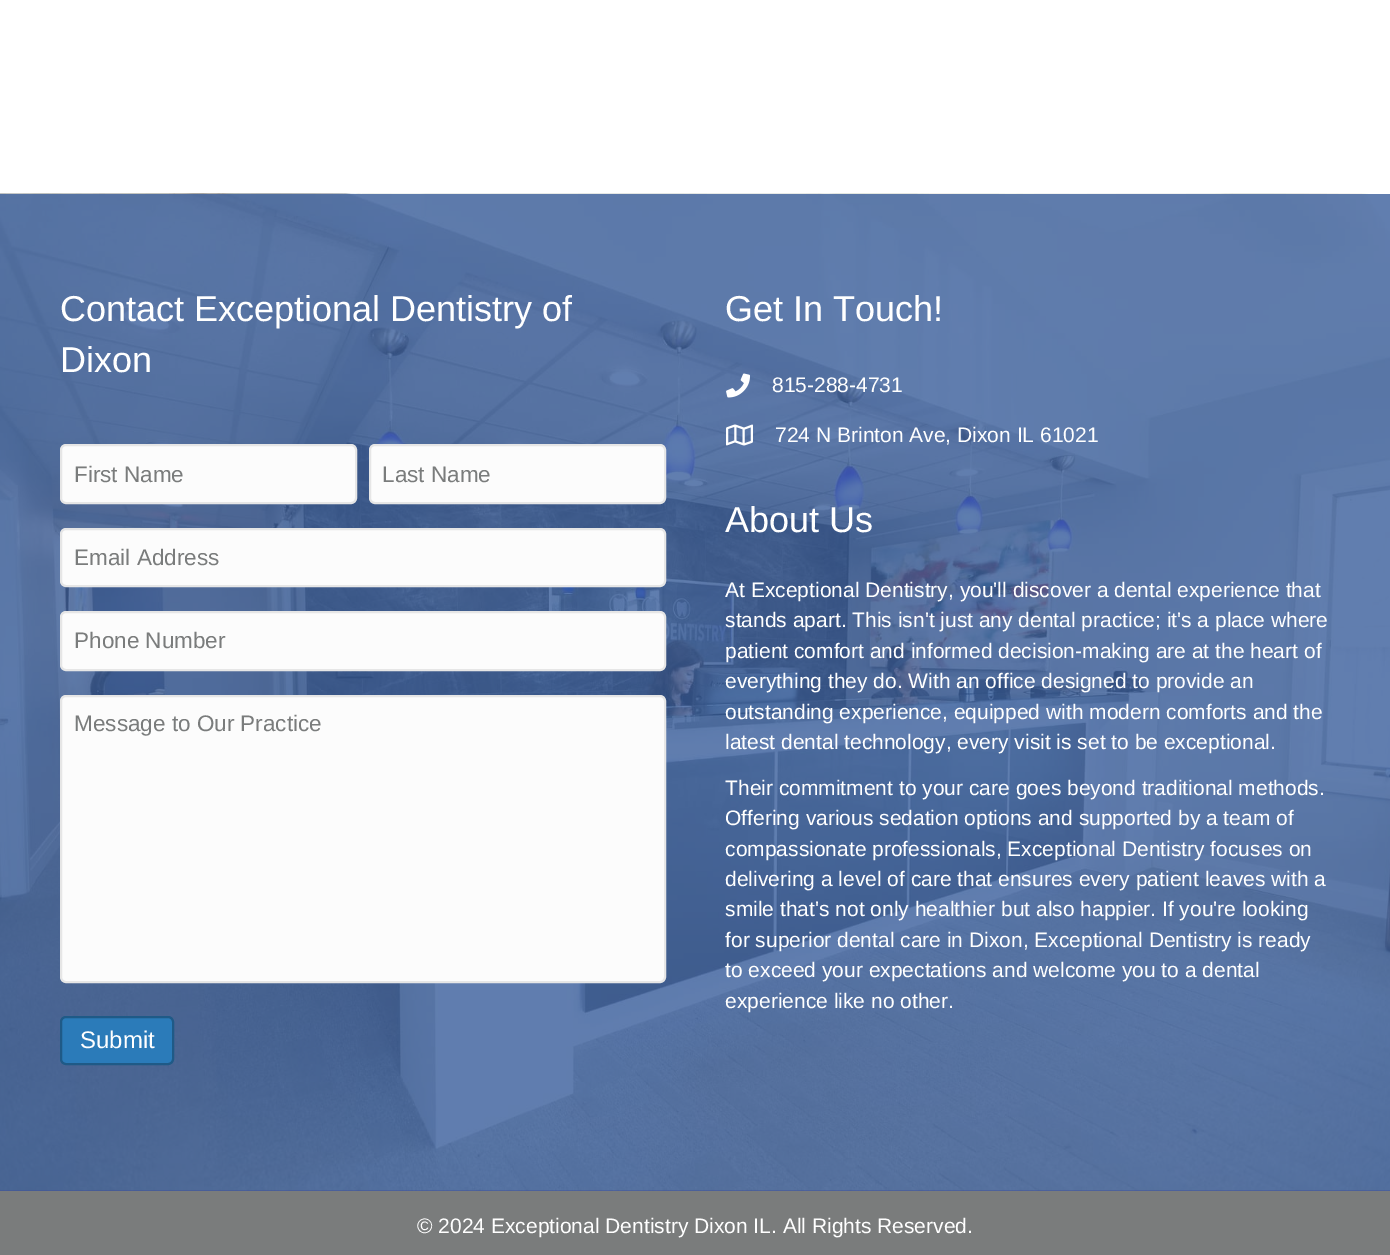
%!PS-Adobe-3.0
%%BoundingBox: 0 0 1390 1255
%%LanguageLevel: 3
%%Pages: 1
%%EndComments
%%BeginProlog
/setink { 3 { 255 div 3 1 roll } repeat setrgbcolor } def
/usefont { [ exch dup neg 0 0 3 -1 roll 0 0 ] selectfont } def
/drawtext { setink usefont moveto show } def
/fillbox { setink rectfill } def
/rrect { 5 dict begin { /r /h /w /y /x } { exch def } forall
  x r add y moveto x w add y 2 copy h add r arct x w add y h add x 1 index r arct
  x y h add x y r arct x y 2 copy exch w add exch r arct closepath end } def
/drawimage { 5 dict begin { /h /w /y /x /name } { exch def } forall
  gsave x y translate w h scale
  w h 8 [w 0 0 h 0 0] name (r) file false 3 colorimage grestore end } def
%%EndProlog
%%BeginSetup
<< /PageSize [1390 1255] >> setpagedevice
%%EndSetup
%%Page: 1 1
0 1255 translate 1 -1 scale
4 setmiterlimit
0 0 1390 1255 255 255 255 fillbox
0 1190 1390 1 67 82 153 fillbox
(assets/img1.rgb) 0 193 1390 998 drawimage
(Contact Exceptional Dentistry of) 60 321 /LiberationSans-Regular 36 255 255 255 drawtext
(Dixon) 60 372 /LiberationSans-Regular 36 255 255 255 drawtext
252 252 252 setink
61 445 295 58 5 rrect gsave fill grestore
230 230 230 setink
2 setlinewidth
stroke
(First Name) 74 482 /LiberationSans-Regular 22.5 122 124 124 drawtext
252 252 252 setink
370 445 295 58 5 rrect gsave fill grestore
230 230 230 setink
stroke
(Last Name) 382 482 /LiberationSans-Regular 22.5 122 124 124 drawtext
252 252 252 setink
61 529 604 57 5 rrect gsave fill grestore
230 230 230 setink
stroke
(Email Address) 74 565 /LiberationSans-Regular 22.5 122 124 124 drawtext
252 252 252 setink
61 612 604 58 5 rrect gsave fill grestore
230 230 230 setink
stroke
(Phone Number) 74 648 /LiberationSans-Regular 22.5 122 124 124 drawtext
252 252 252 setink
61 696 604 286 5 rrect gsave fill grestore
230 230 230 setink
stroke
(Message to Our Practice) 74 731 /LiberationSans-Regular 22.5 122 124 124 drawtext
43 123 185 setink
61 1017 112 47 5 rrect gsave fill grestore
31 90 135 setink
stroke
(Submit) 80 1048 /LiberationSans-Regular 24 255 255 255 drawtext
(Get In Touch!) 725 321 /LiberationSans-Regular 36 255 255 255 drawtext
(assets/img2.rgb) 726 373 24 25 drawimage
(815-288-4731) 772 392 /LiberationSans-Regular 21 255 255 255 drawtext
(assets/img3.rgb) 726 424 27 22 drawimage
(724 N Brinton Ave, Dixon IL 61021) 775 442 /LiberationSans-Regular 21 255 255 255 drawtext
(About Us) 725 532 /LiberationSans-Regular 36 255 255 255 drawtext
(At Exceptional Dentistry, you'll discover a dental experience that) 725 597 /LiberationSans-Regular 21 255 255 255 drawtext
(stands apart. This isn't just any dental practice; it's a place where) 725 627 /LiberationSans-Regular 21 255 255 255 drawtext
(patient comfort and informed decision-making are at the heart of) 725 658 /LiberationSans-Regular 21 255 255 255 drawtext
(everything they do. With an office designed to provide an) 725 688 /LiberationSans-Regular 21 255 255 255 drawtext
(outstanding experience, equipped with modern comforts and the) 725 719 /LiberationSans-Regular 21 255 255 255 drawtext
(latest dental technology, every visit is set to be exceptional.) 725 749 /LiberationSans-Regular 21 255 255 255 drawtext
(Their commitment to your care goes beyond traditional methods.) 725 795 /LiberationSans-Regular 21 255 255 255 drawtext
(Offering various sedation options and supported by a team of) 725 825 /LiberationSans-Regular 21 255 255 255 drawtext
(compassionate professionals, Exceptional Dentistry focuses on) 725 856 /LiberationSans-Regular 21 255 255 255 drawtext
(delivering a level of care that ensures every patient leaves with a) 725 886 /LiberationSans-Regular 21 255 255 255 drawtext
(smile that's not only healthier but also happier. If you're looking) 725 916 /LiberationSans-Regular 21 255 255 255 drawtext
(for superior dental care in Dixon, Exceptional Dentistry is ready) 725 947 /LiberationSans-Regular 21 255 255 255 drawtext
(to exceed your expectations and welcome you to a dental) 725 977 /LiberationSans-Regular 21 255 255 255 drawtext
(experience like no other.) 725 1008 /LiberationSans-Regular 21 255 255 255 drawtext
0 1191 1390 64 122 124 124 fillbox
(© 2024 Exceptional Dentistry Dixon IL. All Rights Reserved.) 417 1233 /LiberationSans-Regular 21 255 255 255 drawtext
showpage
%%EOF
